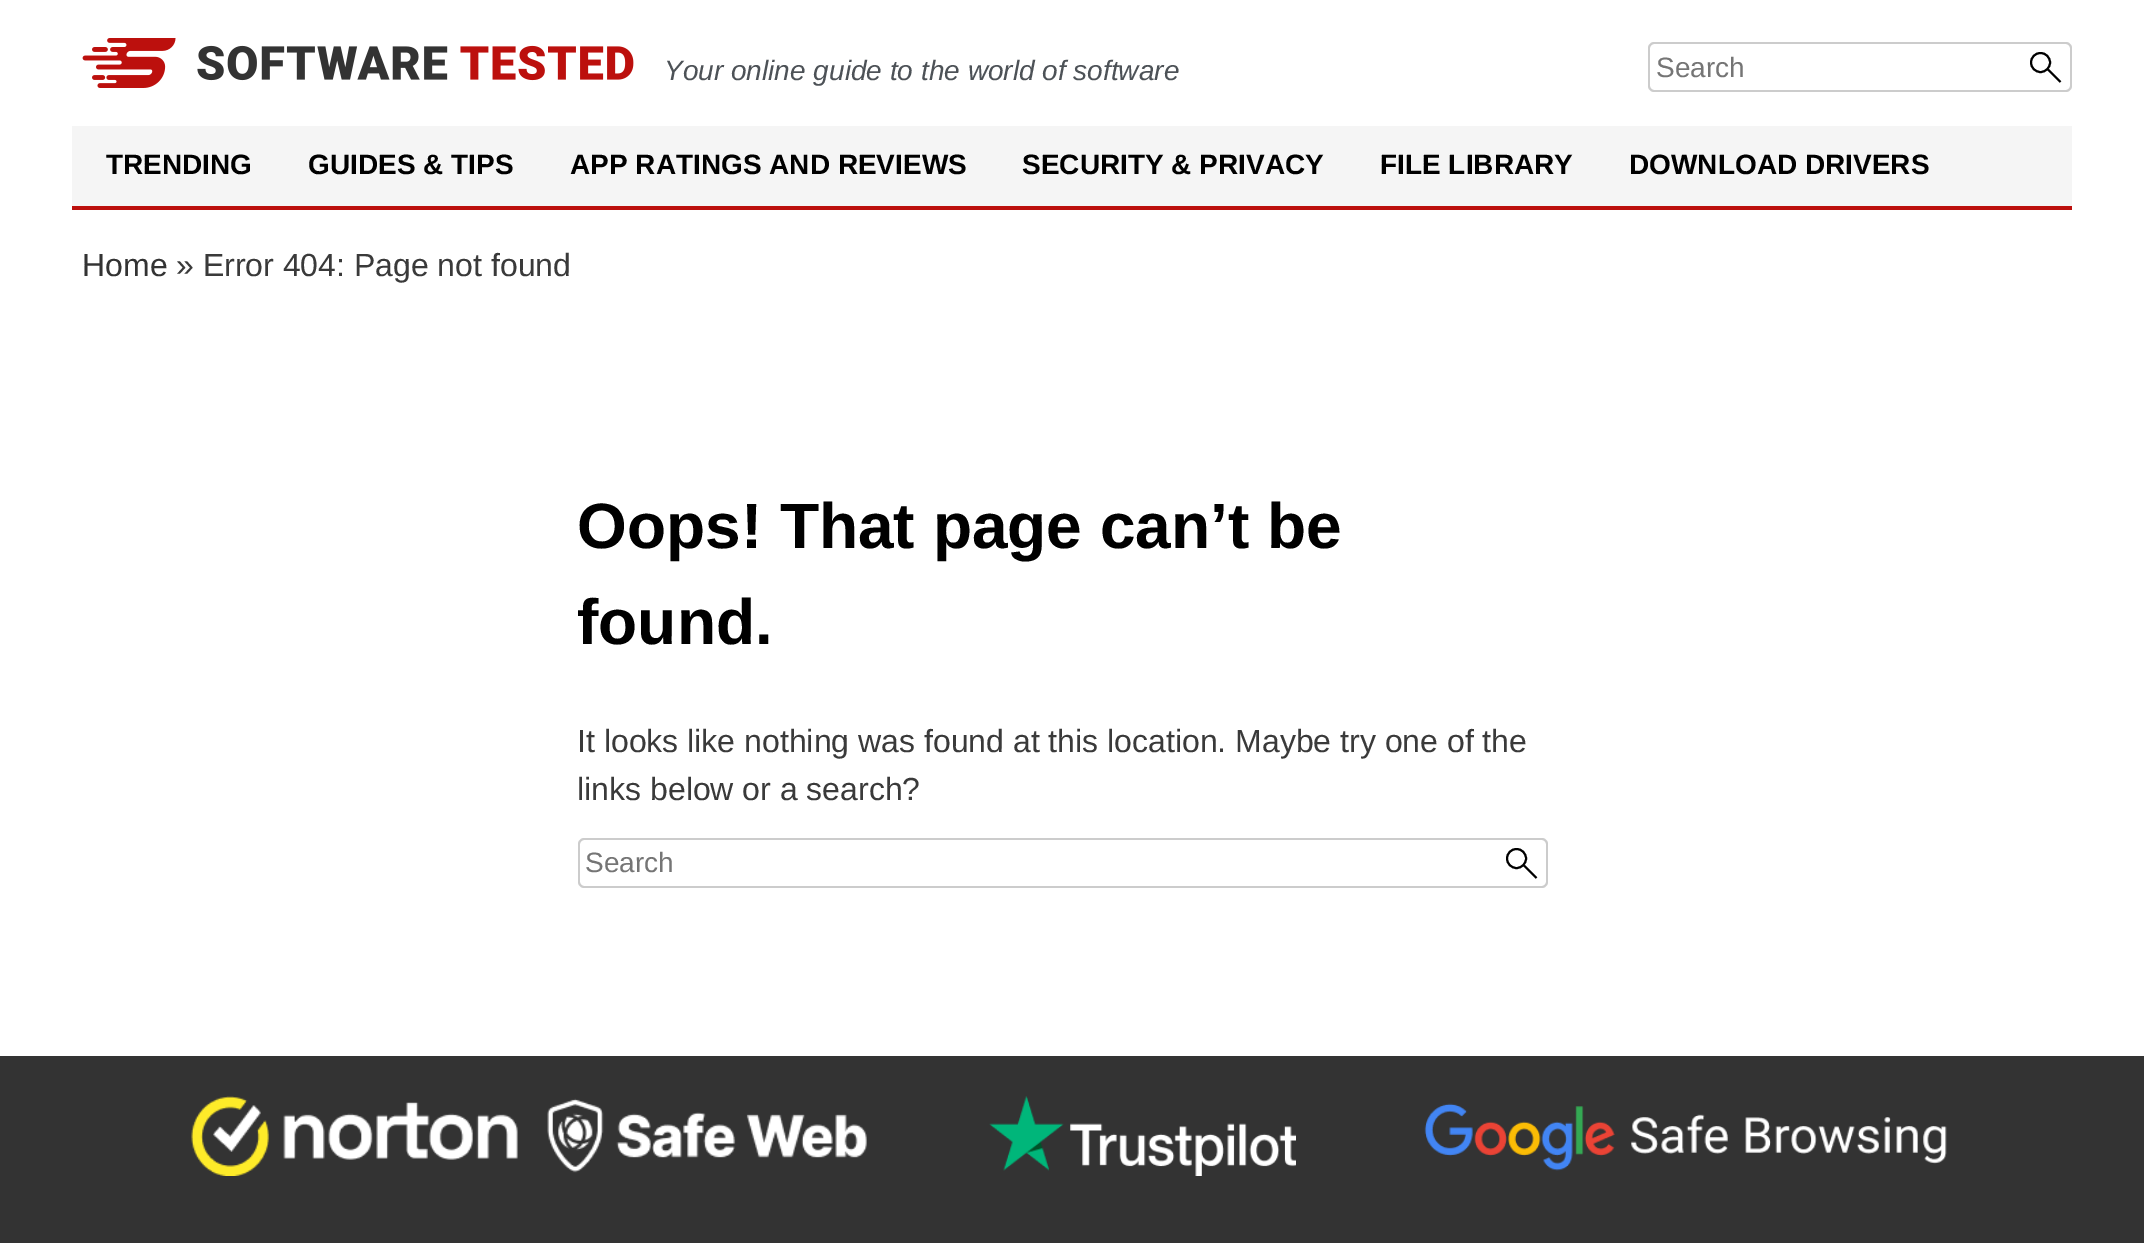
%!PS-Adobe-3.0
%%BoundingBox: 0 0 2144 1243
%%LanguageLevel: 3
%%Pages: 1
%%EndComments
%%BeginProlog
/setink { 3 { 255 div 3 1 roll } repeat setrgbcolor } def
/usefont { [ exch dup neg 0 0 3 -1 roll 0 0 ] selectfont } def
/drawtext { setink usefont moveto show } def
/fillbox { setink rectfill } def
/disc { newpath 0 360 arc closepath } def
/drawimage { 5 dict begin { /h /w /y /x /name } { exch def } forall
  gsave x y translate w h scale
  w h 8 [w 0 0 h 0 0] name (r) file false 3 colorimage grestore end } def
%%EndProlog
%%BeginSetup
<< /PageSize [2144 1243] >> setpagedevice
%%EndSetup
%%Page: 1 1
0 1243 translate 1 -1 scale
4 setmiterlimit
0 0 2144 1243 255 255 255 fillbox
(assets/img1.rgb) 82 38 552 50 drawimage
(Your online guide to the world of software) 664 80 /LiberationSans-Italic 28 77 82 87 drawtext
204 204 204 setink
1654 42 moveto 2022 42 lineto 2022 92 lineto 1654 92 lineto 1651 92 1648 89 1648 86 curveto 1648 48 lineto 1648 45 1651 42 1654 42 curveto closepath 1654 44 moveto 2022 44 lineto 2022 90 lineto 1654 90 lineto 1652 90 1650 88 1650 86 curveto 1650 48 lineto 1650 46 1652 44 1654 44 curveto closepath eofill
(Search) 1656 77 /LiberationSans-Regular 28 117 117 117 drawtext
0 0 0 setink
2 setlinewidth
2040.5 62.5 9.5 disc stroke
2048 69.5 moveto 2060.5 82 lineto stroke
204 204 204 setink
2022 42 moveto 2066 42 lineto 2069 42 2072 45 2072 48 curveto 2072 86 lineto 2072 89 2069 92 2066 92 curveto 2022 92 lineto closepath 2022 44 moveto 2066 44 lineto 2068 44 2070 46 2070 48 curveto 2070 86 lineto 2070 88 2068 90 2066 90 curveto 2022 90 lineto closepath eofill
72 206 2000 4 188 16 13 fillbox
72 126 2000 80 245 245 245 fillbox
(TRENDING) 106 174 /LiberationSans-Bold 28 0 0 0 drawtext
(GUIDES & TIPS) 308 174 /LiberationSans-Bold 28 0 0 0 drawtext
(APP RATINGS AND REVIEWS) 570 174 /LiberationSans-Bold 28 0 0 0 drawtext
(SECURITY & PRIVACY) 1022 174 /LiberationSans-Bold 28 0 0 0 drawtext
(FILE LIBRARY) 1380 174 /LiberationSans-Bold 28 0 0 0 drawtext
(DOWNLOAD DRIVERS) 1629 174 /LiberationSans-Bold 28 0 0 0 drawtext
(Home) 82 276 /LiberationSans-Regular 32 51 51 51 drawtext
(» Error 404: Page not found) 176 276 /LiberationSans-Regular 32 58 58 58 drawtext
(Oops! That page can’t be) 577 548 /LiberationSans-Bold 64 0 0 0 drawtext
(found.) 577 644 /LiberationSans-Bold 64 0 0 0 drawtext
(It looks like nothing was found at this location. Maybe try one of the) 577 752 /LiberationSans-Regular 32 58 58 58 drawtext
(links below or a search?) 577 800 /LiberationSans-Regular 32 58 58 58 drawtext
204 204 204 setink
584 838 moveto 1498 838 lineto 1498 888 lineto 584 888 lineto 581 888 578 885 578 882 curveto 578 844 lineto 578 841 581 838 584 838 curveto closepath 584 840 moveto 1498 840 lineto 1498 886 lineto 584 886 lineto 582 886 580 884 580 882 curveto 580 844 lineto 580 842 582 840 584 840 curveto closepath eofill
(Search) 585 872 /LiberationSans-Regular 28 117 117 117 drawtext
0 0 0 setink
1516.5 858.5 9.5 disc stroke
1524 865.5 moveto 1536.5 878 lineto stroke
204 204 204 setink
1498 838 moveto 1542 838 lineto 1545 838 1548 841 1548 844 curveto 1548 882 lineto 1548 885 1545 888 1542 888 curveto 1498 888 lineto closepath 1498 840 moveto 1542 840 lineto 1544 840 1546 842 1546 844 curveto 1546 882 lineto 1546 884 1544 886 1542 886 curveto 1498 886 lineto closepath eofill
0 1056 2144 187 51 51 51 fillbox
(assets/img2.rgb) 191 1096 676 80 drawimage
(assets/img3.rgb) 989 1096 307 80 drawimage
(assets/img4.rgb) 1424 1103 523 68 drawimage
showpage
%%EOF
